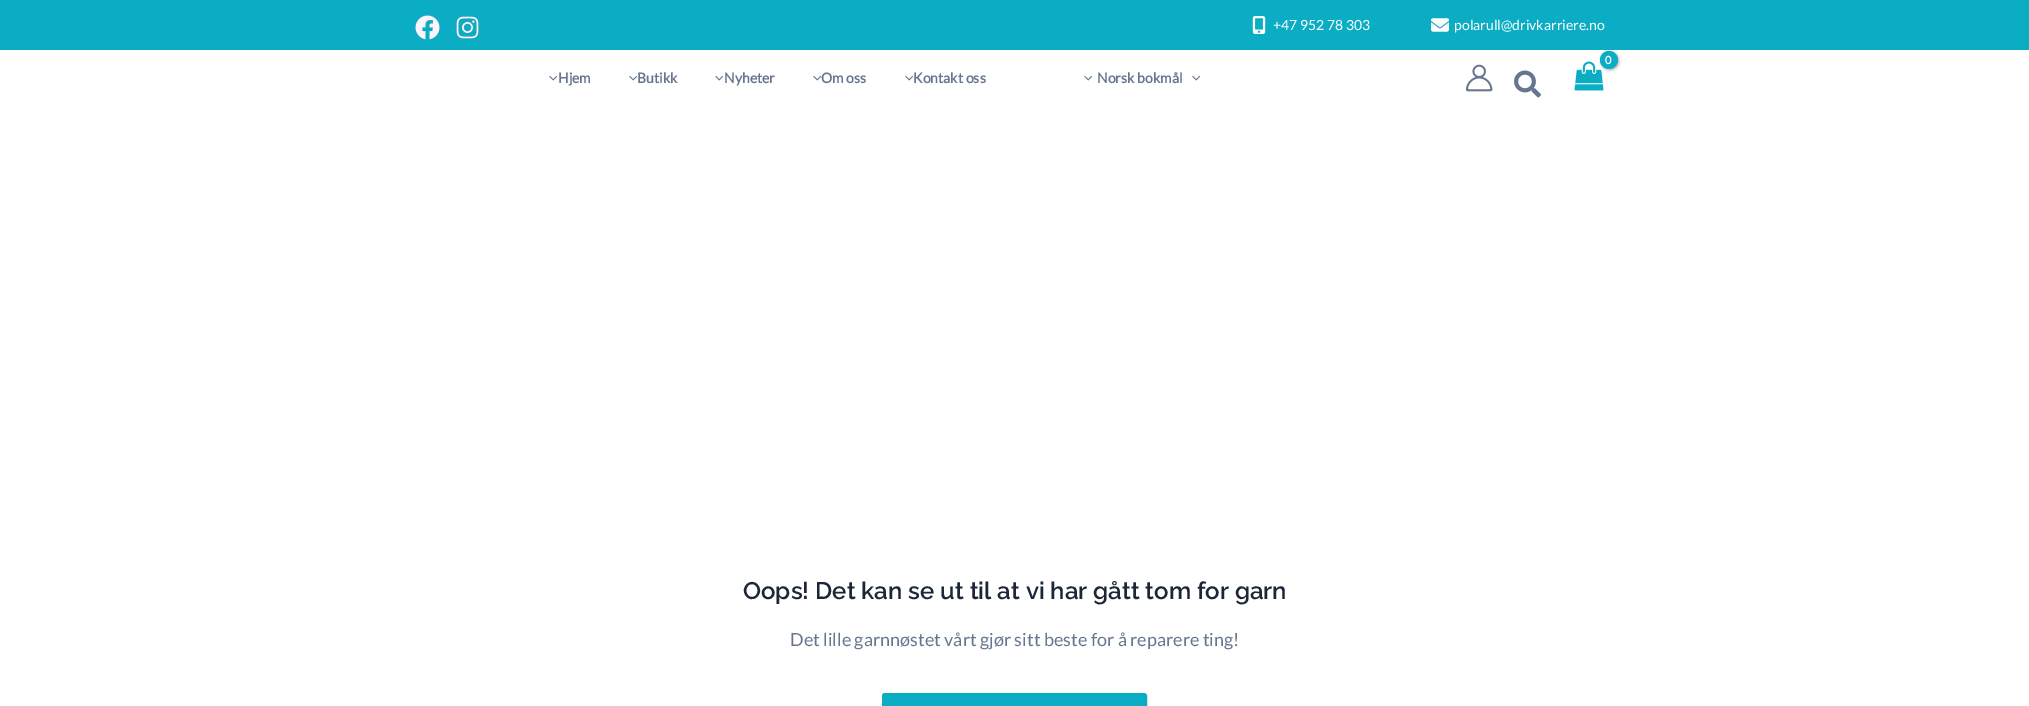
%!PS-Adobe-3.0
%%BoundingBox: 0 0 2029 706
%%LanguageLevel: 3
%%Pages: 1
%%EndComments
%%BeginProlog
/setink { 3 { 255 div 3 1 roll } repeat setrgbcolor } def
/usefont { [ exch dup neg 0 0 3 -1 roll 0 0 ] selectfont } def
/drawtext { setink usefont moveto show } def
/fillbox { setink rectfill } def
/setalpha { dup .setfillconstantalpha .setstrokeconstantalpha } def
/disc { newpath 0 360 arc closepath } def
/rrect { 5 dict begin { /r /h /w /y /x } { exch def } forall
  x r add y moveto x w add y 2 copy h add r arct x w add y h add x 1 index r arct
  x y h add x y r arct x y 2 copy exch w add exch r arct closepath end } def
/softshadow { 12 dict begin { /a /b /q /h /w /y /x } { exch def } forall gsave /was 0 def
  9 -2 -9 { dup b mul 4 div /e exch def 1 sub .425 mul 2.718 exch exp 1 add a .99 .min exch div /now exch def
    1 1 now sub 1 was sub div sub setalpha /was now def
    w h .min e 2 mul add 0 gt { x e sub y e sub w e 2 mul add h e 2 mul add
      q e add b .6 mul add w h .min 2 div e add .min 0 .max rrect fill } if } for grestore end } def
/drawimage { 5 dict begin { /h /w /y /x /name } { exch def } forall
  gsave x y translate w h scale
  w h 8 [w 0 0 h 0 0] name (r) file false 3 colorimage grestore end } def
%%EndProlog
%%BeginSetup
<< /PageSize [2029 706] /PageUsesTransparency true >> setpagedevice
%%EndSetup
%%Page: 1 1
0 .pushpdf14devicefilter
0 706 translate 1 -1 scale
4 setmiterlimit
0 0 2029 706 255 255 255 fillbox
0 0 2029 50 11 173 196 fillbox
(assets/img1.rgb) 415 15 25 25 drawimage
(assets/img2.rgb) 456 16 23 23 drawimage
(assets/img3.rgb) 1252 16 14 18 drawimage
(+47 952 78 303) 1273 30 /Lato-Regular 14 255 255 255 drawtext
(assets/img4.rgb) 1431 18 18 14 drawimage
(polarull@drivkarriere.no) 1454 30 /Lato-Regular 14 255 255 255 drawtext
(assets/img5.rgb) 1574 61 30 30 drawimage
0 0 0 setink
1601 52 18 18 9 1.5 0.3 softshadow
11 173 196 setink
1609 60 9 disc fill
(0) 1605 64 /Lato-Bold 11 255 255 255 drawtext
(assets/img6.rgb) 1465 64 28 28 drawimage
(assets/img7.rgb) 1514 70 27 28 drawimage
(assets/img8.rgb) 549 75 9 6 drawimage
(Hjem) 558 83 /Lato-Bold 14 103 118 142 drawtext
(assets/img9.rgb) 629 75 8 6 drawimage
(Butikk) 637 83 /Lato-Bold 14 103 118 142 drawtext
(assets/img8.rgb) 715 75 9 6 drawimage
(Nyheter) 724 83 /Lato-Bold 14 103 118 142 drawtext
(assets/img9.rgb) 813 75 8 6 drawimage
(Om oss) 821 83 /Lato-Bold 14 103 118 142 drawtext
(assets/img9.rgb) 905 75 8 6 drawimage
(Kontakt oss) 913 83 /Lato-Bold 14 103 118 142 drawtext
(assets/img8.rgb) 1084 75 9 6 drawimage
(Norsk bokmål) 1097 83 /Lato-Bold 14 103 118 142 drawtext
(assets/img8.rgb) 1192 75 9 6 drawimage
(Oops! Det kan se ut til at vi har gått tom for garn) 743 599 /Raleway-SemiBold 24 28 38 55 drawtext
(Det lille garnnøstet vårt gjør sitt beste for å reparere ting!) 790 646 /Lato-Regular 18 103 118 142 drawtext
11 173 196 setink
882.5 693.5 264 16 2.5 rrect gsave fill grestore
stroke
.poppdf14devicefilter showpage
%%EOF
